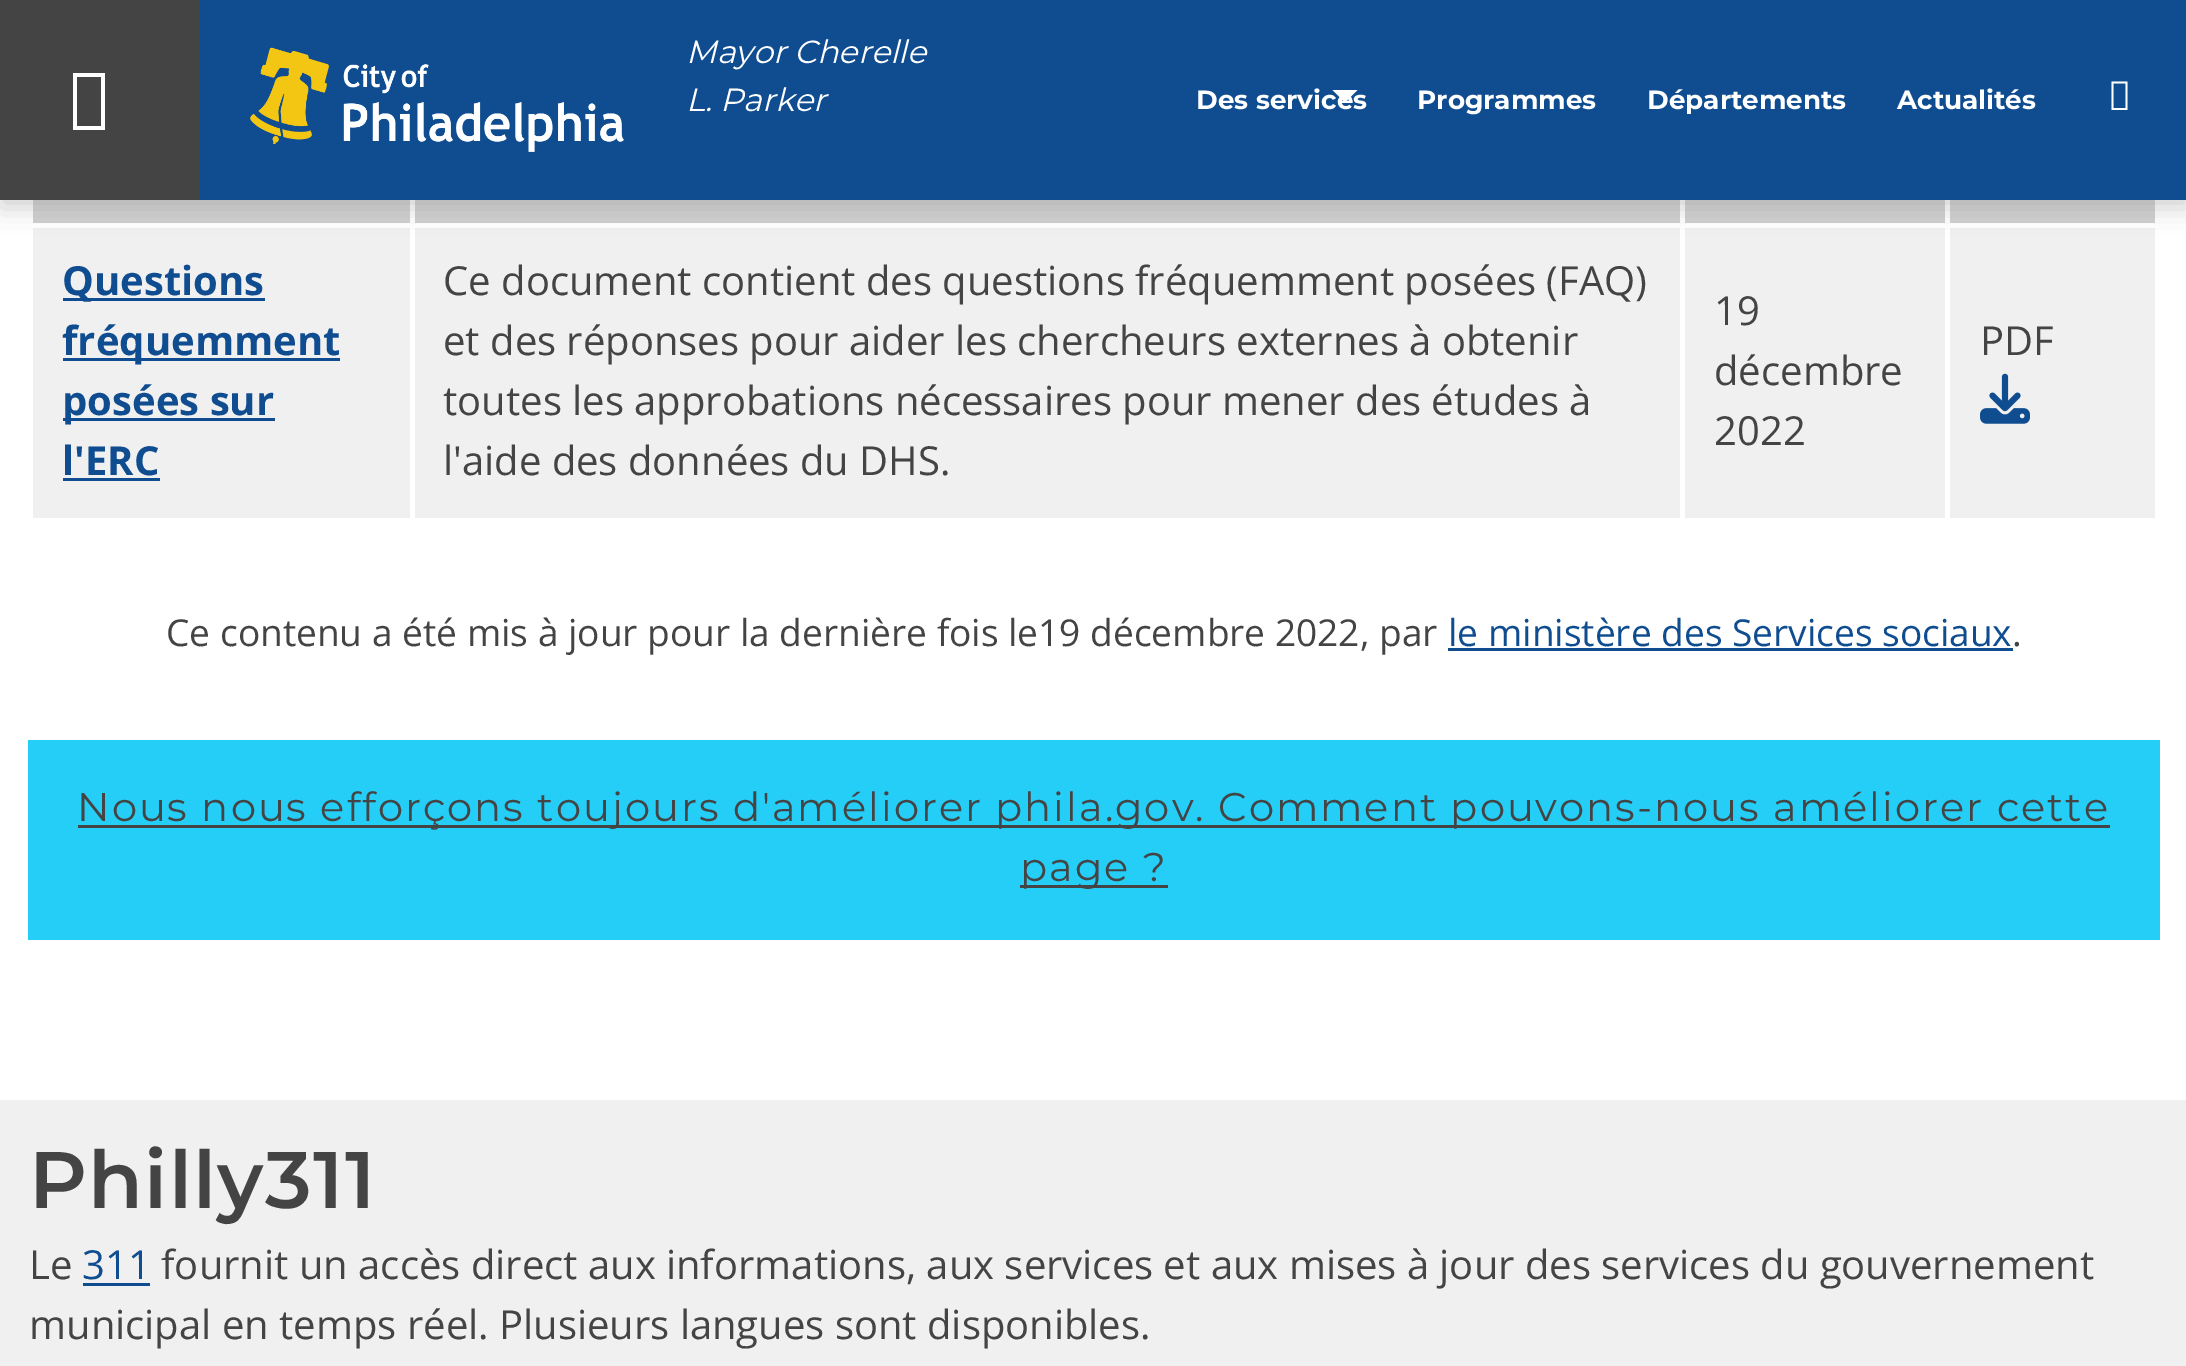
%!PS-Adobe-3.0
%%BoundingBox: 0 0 2186 1366
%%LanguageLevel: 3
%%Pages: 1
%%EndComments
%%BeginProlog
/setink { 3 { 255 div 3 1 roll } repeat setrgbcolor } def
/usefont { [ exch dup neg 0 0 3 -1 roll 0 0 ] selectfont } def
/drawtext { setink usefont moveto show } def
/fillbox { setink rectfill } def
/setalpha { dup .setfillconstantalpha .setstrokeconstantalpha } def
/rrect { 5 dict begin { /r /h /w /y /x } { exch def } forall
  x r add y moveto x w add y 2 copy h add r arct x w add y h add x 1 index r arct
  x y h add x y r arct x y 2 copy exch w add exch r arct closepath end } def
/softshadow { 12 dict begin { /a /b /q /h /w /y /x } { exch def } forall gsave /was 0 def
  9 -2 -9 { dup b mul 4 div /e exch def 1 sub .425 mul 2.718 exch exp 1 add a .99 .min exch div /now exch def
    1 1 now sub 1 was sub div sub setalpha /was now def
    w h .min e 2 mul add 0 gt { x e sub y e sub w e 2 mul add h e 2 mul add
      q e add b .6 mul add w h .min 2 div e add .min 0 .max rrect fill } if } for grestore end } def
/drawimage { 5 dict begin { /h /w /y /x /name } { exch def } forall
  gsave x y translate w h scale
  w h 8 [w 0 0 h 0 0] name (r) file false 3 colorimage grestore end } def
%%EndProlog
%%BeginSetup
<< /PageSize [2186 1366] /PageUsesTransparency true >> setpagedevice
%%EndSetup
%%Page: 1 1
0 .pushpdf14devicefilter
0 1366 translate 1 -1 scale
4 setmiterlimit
0 0 2186 1366 255 255 255 fillbox
33 228 2122 290 240 240 240 fillbox
33 200 2122 23 207 207 207 fillbox
410 200 5 323 255 255 255 fillbox
1680 200 5 323 255 255 255 fillbox
1945 200 5 323 255 255 255 fillbox
161 161 161 setink
0 8 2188 200 0 12.5 0.5 softshadow
200 0 1986 200 15 77 144 fillbox
0 0 200 200 68 68 68 fillbox
255 255 255 setink
73 130 moveto 73 73 lineto 105 73 lineto 105 130 lineto closepath 77 126 moveto 101 126 lineto 101 77 lineto 77 77 lineto closepath fill
(assets/img1.rgb) 250 47 374 105 drawimage
(Mayor Cherelle) 686 63 /Montserrat-Italic 32 255 255 255 drawtext
(L. Parker) 686 111 /Montserrat-Italic 32 255 255 255 drawtext
(Des services) 1196 109 /Montserrat-Bold 26.25 255 255 255 drawtext
1332.5 90 moveto 1357.5 90 lineto 1345 102.5 lineto closepath fill
(Programmes) 1417 109 /Montserrat-Bold 26.25 255 255 255 drawtext
(Départements) 1647 109 /Montserrat-Bold 26.25 255 255 255 drawtext
(Actualités) 1897 109 /Montserrat-Bold 26.25 255 255 255 drawtext
2111.5 110 moveto 2111.5 81.5 lineto 2127.5 81.5 lineto 2127.5 110 lineto closepath 2113.5 108 moveto 2125.5 108 lineto 2125.5 83.5 lineto 2113.5 83.5 lineto closepath fill
63 298 202 3 15 77 144 fillbox
(Questions) 62 295 /OpenSans-Bold 40 15 77 144 drawtext
63 358 277 3 15 77 144 fillbox
(fréquemment) 62 355 /OpenSans-Bold 40 15 77 144 drawtext
63 418 212 3 15 77 144 fillbox
(posées sur) 62 415 /OpenSans-Bold 40 15 77 144 drawtext
(l'ERC) 62 475 /OpenSans-Bold 40 15 77 144 drawtext
63 478 97 3 15 77 144 fillbox
(Ce document contient des questions fréquemment posées \(FAQ\)) 443 295 /OpenSans-Regular 40 68 68 68 drawtext
(et des réponses pour aider les chercheurs externes à obtenir) 443 355 /OpenSans-Regular 40 68 68 68 drawtext
(toutes les approbations nécessaires pour mener des études à) 443 415 /OpenSans-Regular 40 68 68 68 drawtext
(l'aide des données du DHS.) 443 475 /OpenSans-Regular 40 68 68 68 drawtext
(19) 1714 325 /OpenSans-Regular 40 68 68 68 drawtext
(décembre) 1714 385 /OpenSans-Regular 40 68 68 68 drawtext
(2022) 1714 445 /OpenSans-Regular 40 68 68 68 drawtext
(PDF) 1980 355 /OpenSans-Regular 40 68 68 68 drawtext
(assets/img2.rgb) 1980 373 50 51 drawimage
(Ce contenu a été mis à jour pour la dernière fois le) 166 646 /OpenSans-Regular 37.1 68 68 68 drawtext
(19 décembre 2022, par) 1038 646 /OpenSans-Regular 37.1 68 68 68 drawtext
(le ministère des Services sociaux) 1448 646 /OpenSans-Regular 37.1 15 77 144 drawtext
1448 648 565 3 15 77 144 fillbox
(.) 2012 646 /OpenSans-Regular 37.1 68 68 68 drawtext
28 740 2132 200 37 206 247 fillbox
78 825 2032 3 68 68 68 fillbox
/Montserrat-Regular 40 usefont
77 821 moveto 2 0 (Nous nous efforçons toujours d'améliorer phila.gov. Comment pouvons-nous améliorer cette) ashow
1020 885 148 3 68 68 68 fillbox
1020 881 moveto 2 0 (page ?) ashow
0 1100 2186 266 240 240 240 fillbox
/Montserrat-Thin 80 usefont
68 68 68 setink
29 1208 moveto 1.25 0 (Philly311) ashow
(Le) 29 1279 /OpenSans-Regular 40 68 68 68 drawtext
(311) 82 1279 /OpenSans-Regular 40 15 77 144 drawtext
83 1283 67 3 15 77 144 fillbox
(fournit un accès direct aux informations, aux services et aux mises à jour des services du gouvernement) 161 1279 /OpenSans-Regular 40 68 68 68 drawtext
(municipal en temps réel. Plusieurs langues sont disponibles.) 29 1339 /OpenSans-Regular 40 68 68 68 drawtext
.poppdf14devicefilter showpage
%%EOF
